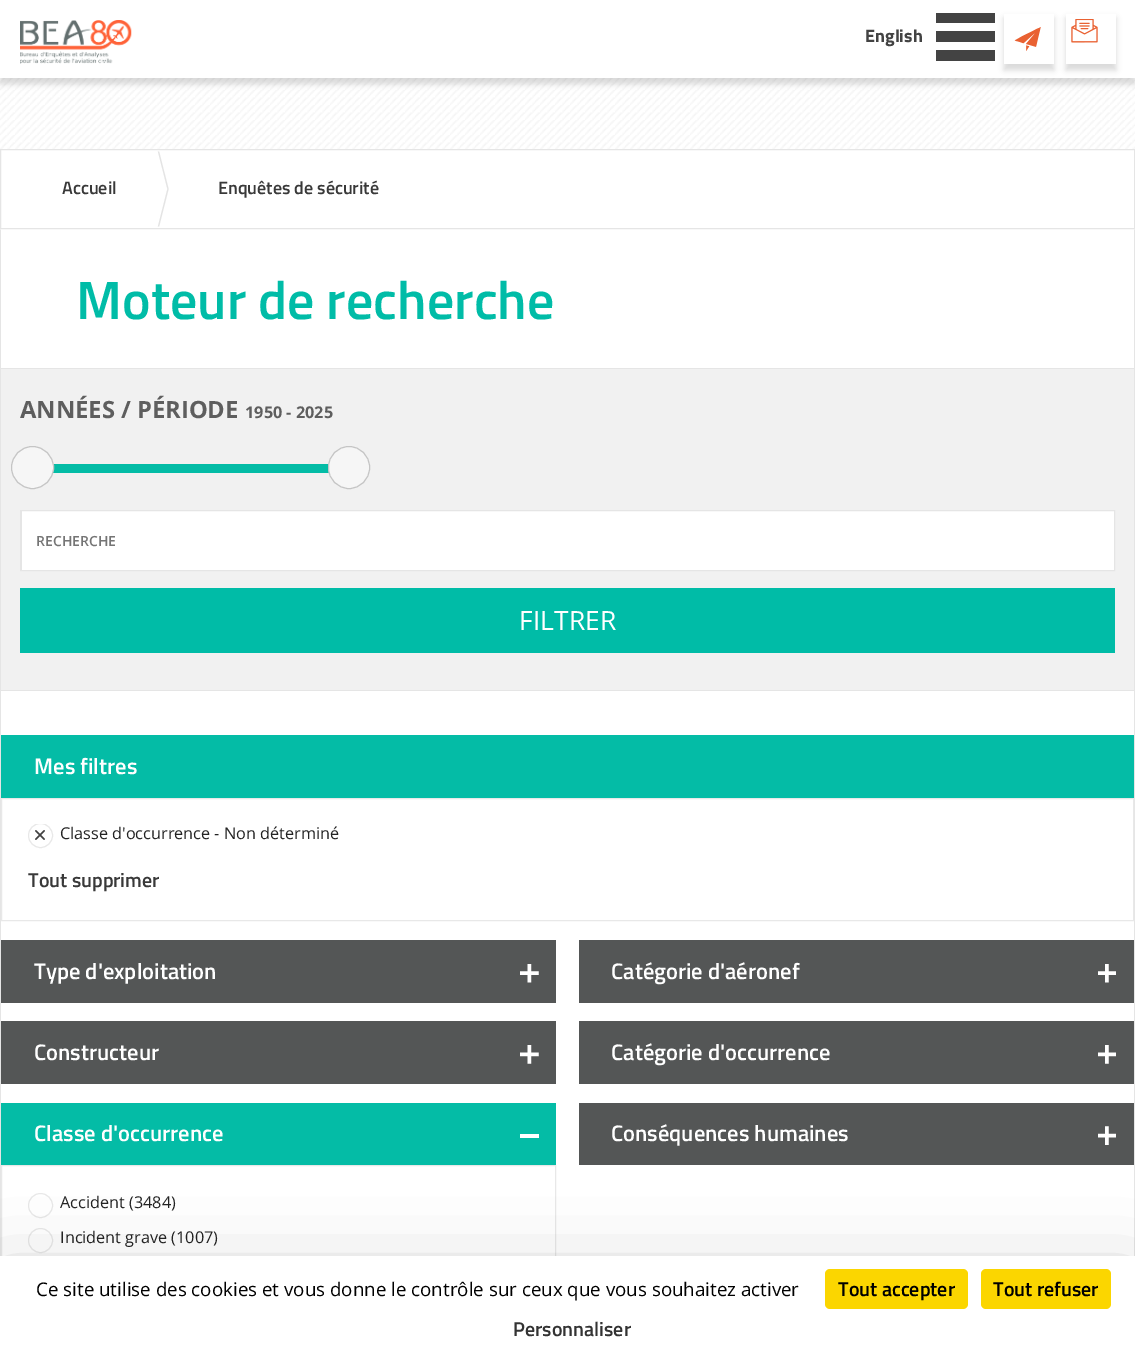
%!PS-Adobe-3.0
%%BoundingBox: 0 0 1135 1361
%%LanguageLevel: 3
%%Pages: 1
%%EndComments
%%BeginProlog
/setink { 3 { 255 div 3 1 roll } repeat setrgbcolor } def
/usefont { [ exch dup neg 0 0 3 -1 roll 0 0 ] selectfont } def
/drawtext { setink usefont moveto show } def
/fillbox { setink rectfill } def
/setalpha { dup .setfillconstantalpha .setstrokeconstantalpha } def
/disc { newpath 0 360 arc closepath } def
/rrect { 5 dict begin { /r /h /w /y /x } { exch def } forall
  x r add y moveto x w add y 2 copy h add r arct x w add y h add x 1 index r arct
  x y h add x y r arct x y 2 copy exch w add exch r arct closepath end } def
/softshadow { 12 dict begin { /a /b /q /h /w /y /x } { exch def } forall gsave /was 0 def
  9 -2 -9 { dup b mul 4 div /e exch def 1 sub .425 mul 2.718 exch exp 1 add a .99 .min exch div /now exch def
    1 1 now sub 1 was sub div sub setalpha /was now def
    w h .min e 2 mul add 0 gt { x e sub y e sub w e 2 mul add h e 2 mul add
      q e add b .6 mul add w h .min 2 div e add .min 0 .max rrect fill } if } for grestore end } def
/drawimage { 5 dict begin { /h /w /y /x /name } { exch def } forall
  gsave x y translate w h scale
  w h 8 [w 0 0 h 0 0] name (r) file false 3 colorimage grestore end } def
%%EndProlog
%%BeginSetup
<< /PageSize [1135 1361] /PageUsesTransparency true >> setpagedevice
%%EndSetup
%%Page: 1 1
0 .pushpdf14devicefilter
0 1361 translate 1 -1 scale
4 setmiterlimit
0 0 1135 1361 255 255 255 fillbox
(assets/img1.rgb) 0 78 1135 71 drawimage
gsave
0 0 moveto 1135 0 lineto 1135 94 lineto 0 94 lineto closepath 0 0 moveto 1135 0 lineto 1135 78 lineto 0 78 lineto closepath eoclip newpath
0 0 0 setink
0 6 1135 78 0 3 0.15 softshadow
grestore
(assets/img2.rgb) 20 20 112 44 drawimage
(English) 865 42 /TitilliumWeb-Bold 18 67 67 67 drawtext
0 0 0 setink
1004 18 50 52 0 3 0.15 softshadow
67 67 67 setink
936 13 moveto 995 13 lineto 995 23 lineto 936 23 lineto closepath 936 31 moveto 995 31 lineto 995 42 lineto 936 42 lineto closepath 936 50 moveto 995 50 lineto 995 61 lineto 936 61 lineto closepath fill
1004 14 50 50 255 255 255 fillbox
(assets/img3.rgb) 1014 27 27 24 drawimage
0 0 0 setink
1066 18 50 52 0 3 0.15 softshadow
1066 14 50 50 255 255 255 fillbox
(assets/img4.rgb) 1071 19 27 24 drawimage
229 229 229 setink
0.5 149.5 1134 79 rectstroke
(Accueil) 62 194 /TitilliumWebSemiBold-SemiBold 18 57 57 57 drawtext
228 228 228 setink
1.2 setlinewidth
158.5 226.5 moveto 168 189 lineto 158.5 151.5 lineto stroke
(Enquêtes de sécurité) 218 194 /TitilliumWebSemiBold-SemiBold 18 57 57 57 drawtext
229 229 229 setink
1135 229 moveto 1135 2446 lineto 1134 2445 lineto 1134 230 lineto closepath fill
0 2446 moveto 0 229 lineto 1 230 lineto 1 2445 lineto closepath fill
(Moteur de recherche) 76 319 /TitilliumWebSemiBold-SemiBold 54 0 188 167 drawtext
1 369 1133 321 241 241 241 fillbox
1 368 1133 1 229 229 229 fillbox
1 690 1133 1 229 229 229 fillbox
(ANNÉES / PÉRIODE) 20 418 /OpenSans-Bold 23.75 94 94 94 drawtext
(1950 - 2025) 245 418 /OpenSans-Bold 16.25 94 94 94 drawtext
53 464 276 9 4 188 166 fillbox
246 246 246 setink
32.5 467.5 21 disc gsave fill grestore
197 197 197 setink
1 setlinewidth
stroke
246 246 246 setink
328.5 446.5 41 42 20.5 rrect gsave fill grestore
197 197 197 setink
stroke
22 511 1092 59 255 255 255 fillbox
229 229 229 setink
20.5 510.5 1094 60 rectstroke
21 511 1 59 229 229 229 fillbox
(RECHERCHE) 36 546 /OpenSans-SemiBold 14 117 117 117 drawtext
20 588 1095 65 0 188 167 fillbox
(FILTRER) 519 630 /OpenSans-Regular 26.5 255 255 255 drawtext
1 735 1133 63 4 188 166 fillbox
(Mes filtres) 34 774 /TitilliumWebSemiBold-SemiBold 22.5 255 255 255 drawtext
232 232 232 setink
1.5 798.5 1132 122 rectstroke
(assets/img5.rgb) 35 830 10 10 drawimage
gsave
28 824 1080 25 rectclip
40.5 835.5 12 disc stroke
grestore
(Classe d'occurrence - Non déterminé) 60 839 /OpenSans-Regular 16.25 35 35 35 drawtext
(Tout supprimer) 28 887 /TitilliumWebSemiBold-SemiBold 20 57 57 57 drawtext
1 940 555 63 84 86 86 fillbox
(assets/img6.rgb) 520 964 19 19 drawimage
(Type d'exploitation) 34 979 /TitilliumWebSemiBold-SemiBold 22.5 255 255 255 drawtext
579 940 555 63 84 86 86 fillbox
(assets/img7.rgb) 1098 964 18 19 drawimage
(Catégorie d'aéronef) 611 979 /TitilliumWebSemiBold-SemiBold 22.5 255 255 255 drawtext
1 1021 555 63 84 86 86 fillbox
(assets/img8.rgb) 520 1045 19 19 drawimage
(Constructeur) 34 1060 /TitilliumWebSemiBold-SemiBold 22.5 255 255 255 drawtext
579 1021 555 63 84 86 86 fillbox
(assets/img9.rgb) 1098 1045 18 19 drawimage
(Catégorie d'occurrence) 611 1060 /TitilliumWebSemiBold-SemiBold 22.5 255 255 255 drawtext
1 1103 555 62 4 188 166 fillbox
520 1134 19 4 255 255 255 fillbox
(Classe d'occurrence) 34 1141 /TitilliumWebSemiBold-SemiBold 22.5 255 255 255 drawtext
232 232 232 setink
1.5 1165.5 554 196 rectstroke
40.5 1205.5 12 disc stroke
(Accident \(3484\)) 60 1208 /OpenSans-Regular 16.25 35 35 35 drawtext
232 232 232 setink
40.5 1240.5 12 disc stroke
(Incident grave \(1007\)) 60 1243 /OpenSans-Regular 16.25 35 35 35 drawtext
579 1103 555 62 84 86 86 fillbox
(assets/img10.rgb) 1098 1126 18 19 drawimage
(Conséquences humaines) 611 1141 /TitilliumWebSemiBold-SemiBold 22.5 255 255 255 drawtext
0 0 0 setink
0 1281 1135 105 0 37.5 0.25 softshadow
0 1256 1135 105 255 255 255 fillbox
(Ce site utilise des cookies et vous donne le contrôle sur ceux que vous souhaitez activer) 36 1296 /OpenSans-Regular 18.75 0 0 0 drawtext
251 214 0 setink
825 1269 143 40 5 rrect fill
(Tout accepter) 838 1296 /TitilliumWebSemiBold-SemiBold 20 0 0 0 drawtext
251 214 0 setink
981 1269 130 40 5 rrect fill
(Tout refuser) 993 1296 /TitilliumWebSemiBold-SemiBold 20 0 0 0 drawtext
(Personnaliser) 513 1336 /TitilliumWebSemiBold-SemiBold 20 51 51 51 drawtext
.poppdf14devicefilter showpage
%%EOF
